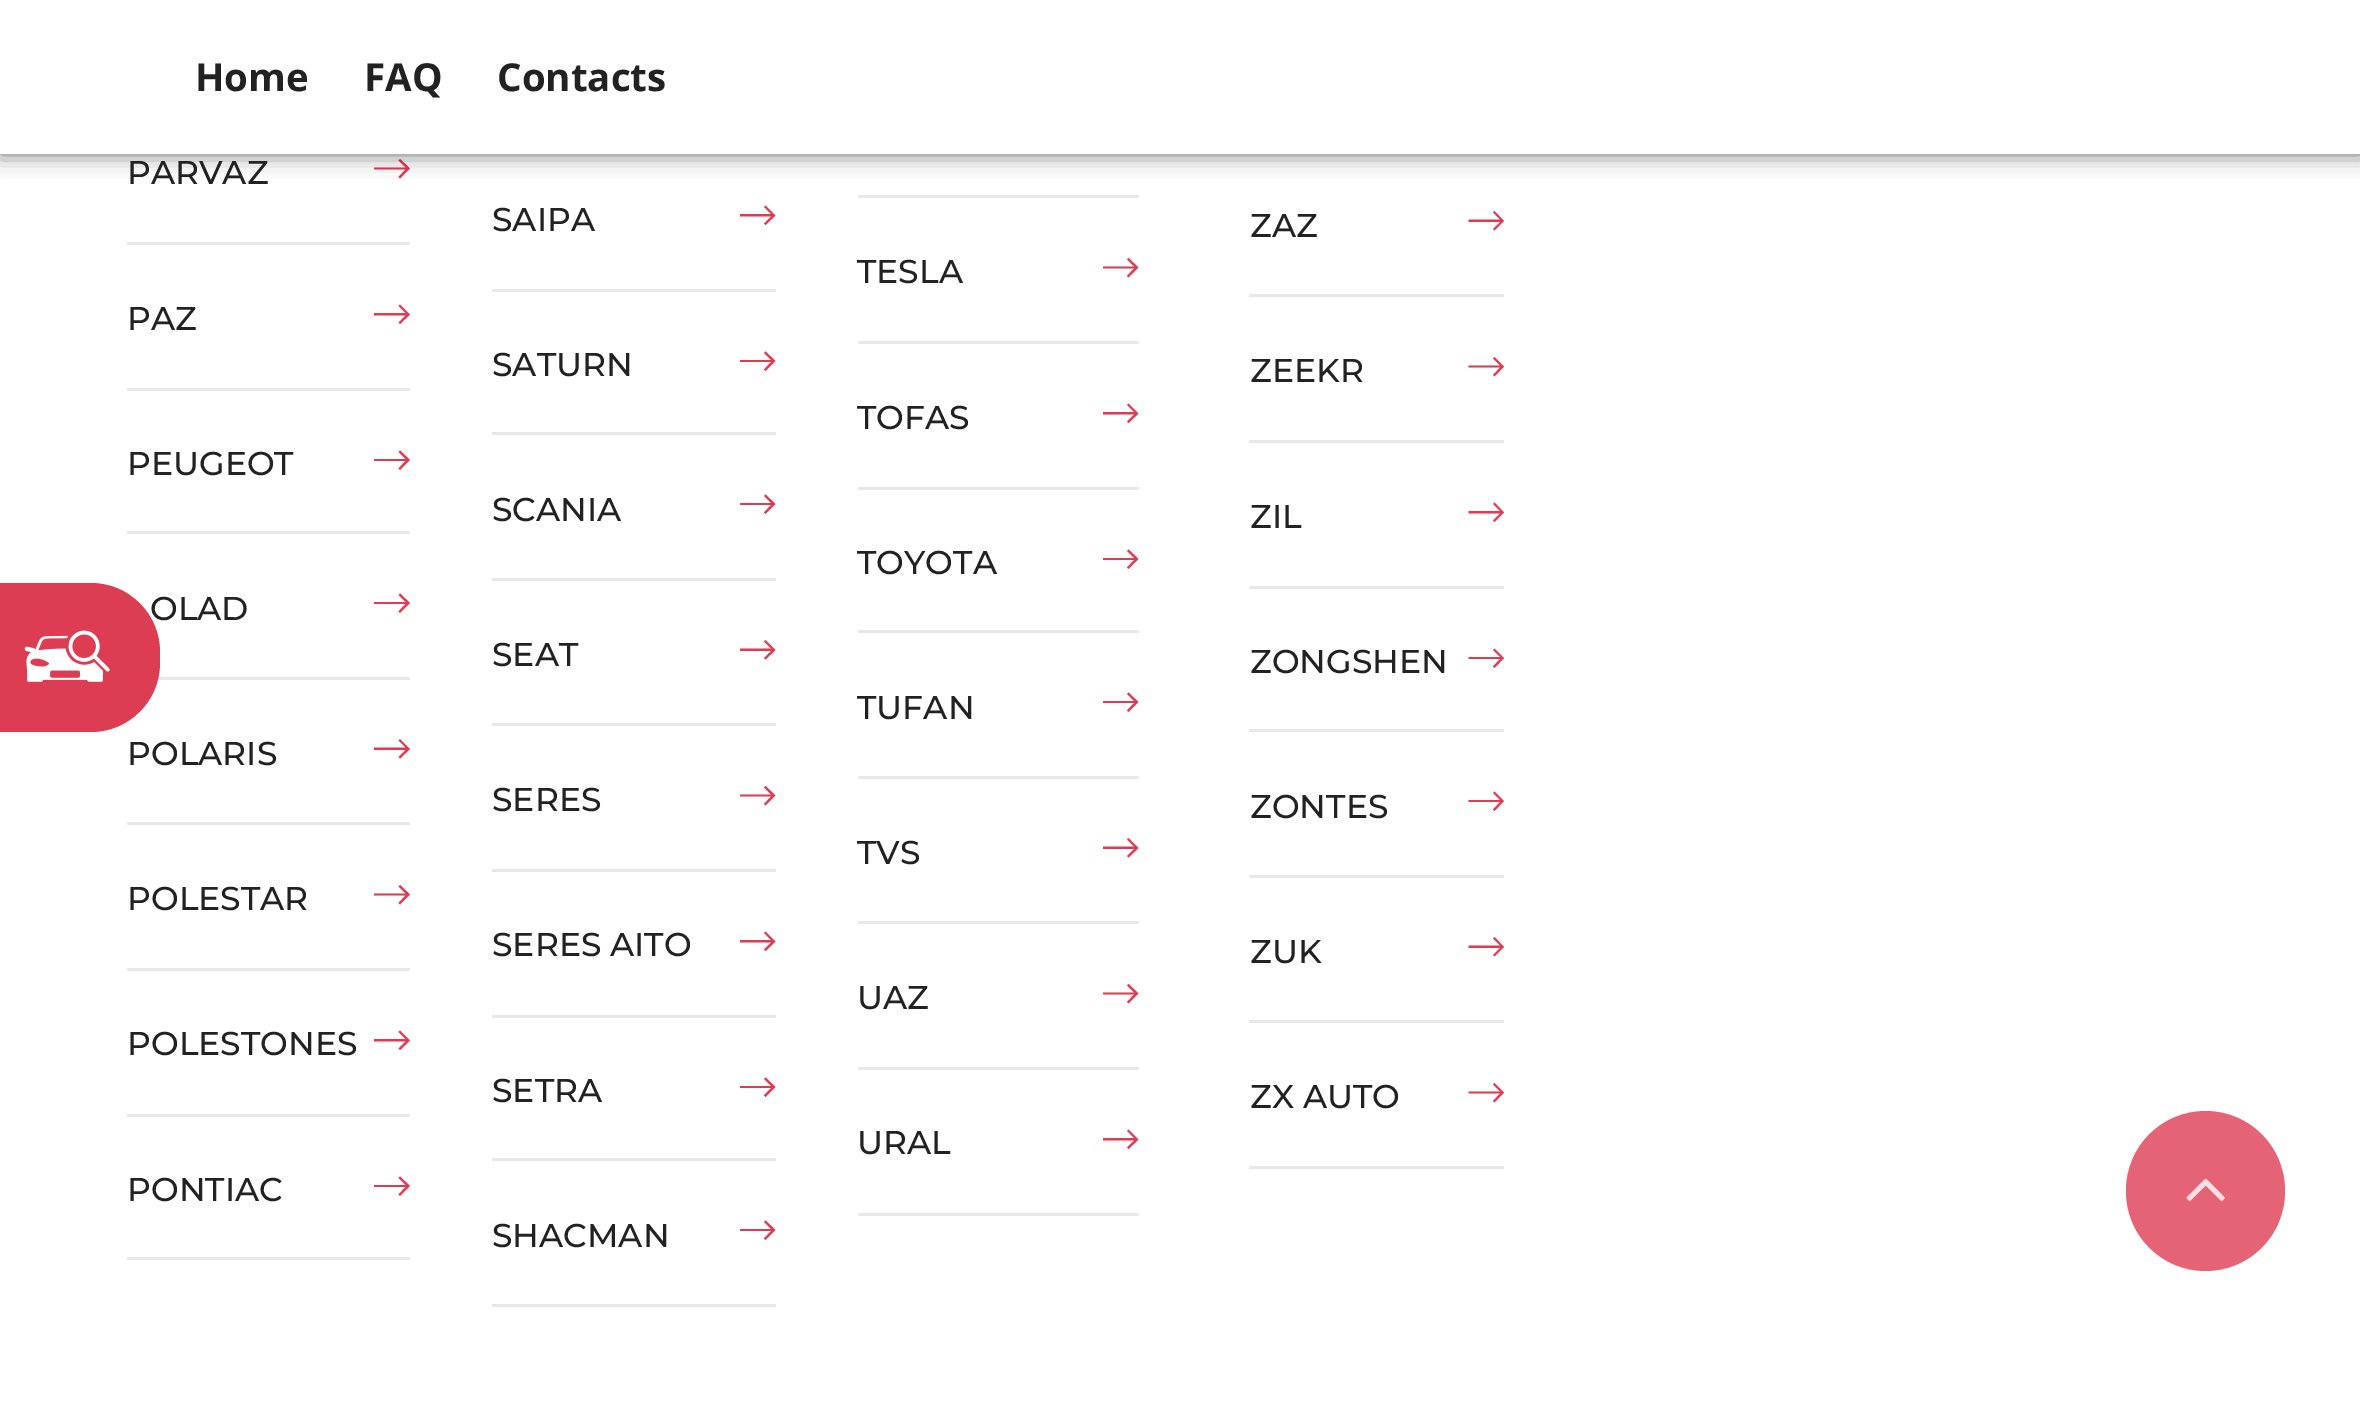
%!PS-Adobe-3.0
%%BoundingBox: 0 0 2360 1406
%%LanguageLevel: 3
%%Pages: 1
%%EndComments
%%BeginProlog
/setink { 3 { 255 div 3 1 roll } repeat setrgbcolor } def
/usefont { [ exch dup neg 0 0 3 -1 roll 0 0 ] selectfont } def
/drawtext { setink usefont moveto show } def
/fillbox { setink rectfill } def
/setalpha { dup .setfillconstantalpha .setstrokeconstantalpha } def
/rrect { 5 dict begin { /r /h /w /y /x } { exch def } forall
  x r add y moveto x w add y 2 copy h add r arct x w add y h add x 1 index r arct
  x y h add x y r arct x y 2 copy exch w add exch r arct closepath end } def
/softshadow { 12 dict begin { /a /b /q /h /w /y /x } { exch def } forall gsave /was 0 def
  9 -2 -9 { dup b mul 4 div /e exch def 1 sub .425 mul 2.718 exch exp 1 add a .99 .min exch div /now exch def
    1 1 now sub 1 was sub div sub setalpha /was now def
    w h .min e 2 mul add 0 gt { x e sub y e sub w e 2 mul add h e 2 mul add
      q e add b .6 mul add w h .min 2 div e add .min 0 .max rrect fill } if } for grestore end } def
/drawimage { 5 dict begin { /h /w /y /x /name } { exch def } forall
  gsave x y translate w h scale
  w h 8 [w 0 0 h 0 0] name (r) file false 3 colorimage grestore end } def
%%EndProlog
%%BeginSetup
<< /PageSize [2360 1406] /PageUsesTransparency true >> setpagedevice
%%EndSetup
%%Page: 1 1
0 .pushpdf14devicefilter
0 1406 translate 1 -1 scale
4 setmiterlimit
0 0 2360 1406 255 255 255 fillbox
221 61 83 setink
400 159 moveto 398.5 160.5 lineto 405.5 167.5 lineto 374 167.5 lineto 374 169.5 lineto 405.5 169.5 lineto 398.5 177 lineto 400 178.5 lineto 410 168.5 lineto closepath fill
0 0 0 setink
0 0 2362 154 0 11 0.6 softshadow
0 0 2360 154 255 255 255 fillbox
(Home) 195 91 /OpenSans-Bold 38.5 34 34 34 drawtext
(FAQ) 364 91 /OpenSans-Bold 38.5 34 34 34 drawtext
(Contacts) 497 91 /OpenSans-Bold 38.5 34 34 34 drawtext
157 677 253 3 232 232 232 fillbox
(OLAD) 150 620 /Montserrat-Medium 33 34 34 34 drawtext
221 61 83 setink
0 583 moveto 91 583 lineto 129 583 160 614 160 652 curveto 160 663 lineto 160 701 129 732 91 732 curveto 0 732 lineto closepath fill
(assets/img1.rgb) 24 630 86 52 drawimage
127 242 283 3 232 232 232 fillbox
(PARVAZ) 127 184 /Montserrat-Medium 33 34 34 34 drawtext
127 388 283 3 232 232 232 fillbox
(PAZ) 127 330 /Montserrat-Medium 33 34 34 34 drawtext
221 61 83 setink
400 304.5 moveto 398.5 306 lineto 405.5 313 lineto 374 313 lineto 374 315.5 lineto 405.5 315.5 lineto 398.5 322.5 lineto 400 324 lineto 410 314.5 lineto closepath fill
127 531 283 3 232 232 232 fillbox
(PEUGEOT) 127 475 /Montserrat-Medium 33 34 34 34 drawtext
221 61 83 setink
400 450.5 moveto 398.5 452 lineto 405.5 459 lineto 374 459 lineto 374 461 lineto 405.5 461 lineto 398.5 468.5 lineto 400 470 lineto 410 460 lineto closepath fill
400 593.5 moveto 398.5 595 lineto 405.5 602 lineto 374 602 lineto 374 604 lineto 405.5 604 lineto 398.5 611.5 lineto 400 613 lineto 410 603 lineto closepath fill
127 822 283 3 232 232 232 fillbox
(POLARIS) 127 765 /Montserrat-Medium 33 34 34 34 drawtext
221 61 83 setink
400 739 moveto 398.5 740.5 lineto 405.5 747.5 lineto 374 747.5 lineto 374 750 lineto 405.5 750 lineto 398.5 757 lineto 400 758.5 lineto 410 749 lineto closepath fill
127 968 283 3 232 232 232 fillbox
(POLESTAR) 127 910 /Montserrat-Medium 33 34 34 34 drawtext
221 61 83 setink
400 885 moveto 398.5 886.5 lineto 405.5 893.5 lineto 374 893.5 lineto 374 895.5 lineto 405.5 895.5 lineto 398.5 903 lineto 400 904.5 lineto 410 894.5 lineto closepath fill
127 1114 283 3 232 232 232 fillbox
(POLESTONES) 127 1055 /Montserrat-Medium 33 34 34 34 drawtext
221 61 83 setink
400 1030.5 moveto 398.5 1032 lineto 405.5 1039 lineto 374 1039 lineto 374 1041.5 lineto 405.5 1041.5 lineto 398.5 1048.5 lineto 400 1050 lineto 410 1040.5 lineto closepath fill
127 1257 283 3 232 232 232 fillbox
(PONTIAC) 127 1201 /Montserrat-Medium 33 34 34 34 drawtext
221 61 83 setink
400 1176.5 moveto 398.5 1178 lineto 405.5 1185 lineto 374 1185 lineto 374 1187 lineto 405.5 1187 lineto 398.5 1194.5 lineto 400 1196 lineto 410 1186 lineto closepath fill
492 289 284 3 232 232 232 fillbox
(SAIPA) 492 231 /Montserrat-Medium 33 34 34 34 drawtext
221 61 83 setink
765.5 205.5 moveto 764 207 lineto 771 214 lineto 740 214 lineto 740 216.5 lineto 771 216.5 lineto 764 223.5 lineto 765.5 225 lineto 775.5 215.5 lineto closepath fill
492 432 284 3 232 232 232 fillbox
(SATURN) 492 376 /Montserrat-Medium 33 34 34 34 drawtext
221 61 83 setink
765.5 351.5 moveto 764 353 lineto 771 360 lineto 740 360 lineto 740 362 lineto 771 362 lineto 764 369.5 lineto 765.5 371 lineto 775.5 361 lineto closepath fill
492 578 284 3 232 232 232 fillbox
(SCANIA) 492 521 /Montserrat-Medium 33 34 34 34 drawtext
221 61 83 setink
765.5 494.5 moveto 764 496 lineto 771 503 lineto 740 503 lineto 740 505 lineto 771 505 lineto 764 512.5 lineto 765.5 514 lineto 775.5 504 lineto closepath fill
492 723 284 3 232 232 232 fillbox
(SEAT) 492 666 /Montserrat-Medium 33 34 34 34 drawtext
221 61 83 setink
765.5 640 moveto 764 641.5 lineto 771 648.5 lineto 740 648.5 lineto 740 651 lineto 771 651 lineto 764 658 lineto 765.5 659.5 lineto 775.5 650 lineto closepath fill
492 869 284 3 232 232 232 fillbox
(SERES) 492 811 /Montserrat-Medium 33 34 34 34 drawtext
221 61 83 setink
765.5 786 moveto 764 787.5 lineto 771 794.5 lineto 740 794.5 lineto 740 796.5 lineto 771 796.5 lineto 764 804 lineto 765.5 805.5 lineto 775.5 795.5 lineto closepath fill
492 1015 284 3 232 232 232 fillbox
(SERES AITO) 492 956 /Montserrat-Medium 33 34 34 34 drawtext
221 61 83 setink
765.5 931.5 moveto 764 933 lineto 771 940 lineto 740 940 lineto 740 942.5 lineto 771 942.5 lineto 764 949.5 lineto 765.5 951 lineto 775.5 941.5 lineto closepath fill
492 1158 284 3 232 232 232 fillbox
(SETRA) 492 1102 /Montserrat-Medium 33 34 34 34 drawtext
221 61 83 setink
765.5 1077.5 moveto 764 1079 lineto 771 1086 lineto 740 1086 lineto 740 1088 lineto 771 1088 lineto 764 1095.5 lineto 765.5 1097 lineto 775.5 1087 lineto closepath fill
492 1304 284 3 232 232 232 fillbox
(SHACMAN) 492 1247 /Montserrat-Medium 33 34 34 34 drawtext
221 61 83 setink
765.5 1220.5 moveto 764 1222 lineto 771 1229 lineto 740 1229 lineto 740 1231 lineto 771 1231 lineto 764 1238.5 lineto 765.5 1240 lineto 775.5 1230 lineto closepath fill
858 195 281 3 232 232 232 fillbox
858 341 281 3 232 232 232 fillbox
(TESLA) 857 283 /Montserrat-Medium 33 34 34 34 drawtext
221 61 83 setink
1128.5 258 moveto 1127 259.5 lineto 1134 266.5 lineto 1103 266.5 lineto 1103 268.5 lineto 1134 268.5 lineto 1127 276 lineto 1128.5 277.5 lineto 1138.5 267.5 lineto closepath fill
858 487 281 3 232 232 232 fillbox
(TOFAS) 857 429 /Montserrat-Medium 33 34 34 34 drawtext
221 61 83 setink
1128.5 403.5 moveto 1127 405 lineto 1134 412 lineto 1103 412 lineto 1103 414.5 lineto 1134 414.5 lineto 1127 421.5 lineto 1128.5 423 lineto 1138.5 413.5 lineto closepath fill
858 630 281 3 232 232 232 fillbox
(TOYOTA) 857 574 /Montserrat-Medium 33 34 34 34 drawtext
221 61 83 setink
1128.5 549.5 moveto 1127 551 lineto 1134 558 lineto 1103 558 lineto 1103 560 lineto 1134 560 lineto 1127 567.5 lineto 1128.5 569 lineto 1138.5 559 lineto closepath fill
858 776 281 3 232 232 232 fillbox
(TUFAN) 857 719 /Montserrat-Medium 33 34 34 34 drawtext
221 61 83 setink
1128.5 692.5 moveto 1127 694 lineto 1134 701 lineto 1103 701 lineto 1103 703 lineto 1134 703 lineto 1127 710.5 lineto 1128.5 712 lineto 1138.5 702 lineto closepath fill
858 921 281 3 232 232 232 fillbox
(TVS) 857 864 /Montserrat-Medium 33 34 34 34 drawtext
221 61 83 setink
1128.5 838 moveto 1127 839.5 lineto 1134 846.5 lineto 1103 846.5 lineto 1103 849 lineto 1134 849 lineto 1127 856 lineto 1128.5 857.5 lineto 1138.5 848 lineto closepath fill
858 1067 281 3 232 232 232 fillbox
(UAZ) 857 1009 /Montserrat-Medium 33 34 34 34 drawtext
221 61 83 setink
1128.5 984 moveto 1127 985.5 lineto 1134 992.5 lineto 1103 992.5 lineto 1103 994.5 lineto 1134 994.5 lineto 1127 1002 lineto 1128.5 1003.5 lineto 1138.5 993.5 lineto closepath fill
858 1213 281 3 232 232 232 fillbox
(URAL) 857 1154 /Montserrat-Medium 33 34 34 34 drawtext
221 61 83 setink
1128.5 1129.5 moveto 1127 1131 lineto 1134 1138 lineto 1103 1138 lineto 1103 1140.5 lineto 1134 1140.5 lineto 1127 1147.5 lineto 1128.5 1149 lineto 1138.5 1139.5 lineto closepath fill
1249 294 255 3 232 232 232 fillbox
(ZAZ) 1250 237 /Montserrat-Medium 33 34 34 34 drawtext
221 61 83 setink
1494.5 211 moveto 1493 212.5 lineto 1500 219.5 lineto 1468.5 219.5 lineto 1468.5 222 lineto 1500 222 lineto 1493 229 lineto 1494.5 230.5 lineto 1504 221 lineto closepath fill
1249 440 255 3 232 232 232 fillbox
(ZEEKR) 1250 382 /Montserrat-Medium 33 34 34 34 drawtext
221 61 83 setink
1494.5 357 moveto 1493 358.5 lineto 1500 365.5 lineto 1468.5 365.5 lineto 1468.5 367.5 lineto 1500 367.5 lineto 1493 375 lineto 1494.5 376.5 lineto 1504 366.5 lineto closepath fill
1249 586 255 3 232 232 232 fillbox
(ZIL) 1250 528 /Montserrat-Medium 33 34 34 34 drawtext
221 61 83 setink
1494.5 502.5 moveto 1493 504 lineto 1500 511 lineto 1468.5 511 lineto 1468.5 513.5 lineto 1500 513.5 lineto 1493 520.5 lineto 1494.5 522 lineto 1504 512.5 lineto closepath fill
1249 729 255 3 232 232 232 fillbox
(ZONGSHEN) 1250 673 /Montserrat-Medium 33 34 34 34 drawtext
221 61 83 setink
1494.5 648.5 moveto 1493 650 lineto 1500 657 lineto 1468.5 657 lineto 1468.5 659 lineto 1500 659 lineto 1493 666.5 lineto 1494.5 668 lineto 1504 658 lineto closepath fill
1249 875 255 3 232 232 232 fillbox
(ZONTES) 1250 818 /Montserrat-Medium 33 34 34 34 drawtext
221 61 83 setink
1494.5 791.5 moveto 1493 793 lineto 1500 800 lineto 1468.5 800 lineto 1468.5 802 lineto 1500 802 lineto 1493 809.5 lineto 1494.5 811 lineto 1504 801 lineto closepath fill
1249 1020 255 3 232 232 232 fillbox
(ZUK) 1250 963 /Montserrat-Medium 33 34 34 34 drawtext
221 61 83 setink
1494.5 937 moveto 1493 938.5 lineto 1500 945.5 lineto 1468.5 945.5 lineto 1468.5 948 lineto 1500 948 lineto 1493 955 lineto 1494.5 956.5 lineto 1504 947 lineto closepath fill
1249 1166 255 3 232 232 232 fillbox
(ZX AUTO) 1250 1108 /Montserrat-Medium 33 34 34 34 drawtext
221 61 83 setink
1494.5 1083 moveto 1493 1084.5 lineto 1500 1091.5 lineto 1468.5 1091.5 lineto 1468.5 1093.5 lineto 1500 1093.5 lineto 1493 1101 lineto 1494.5 1102.5 lineto 1504 1092.5 lineto closepath fill
228 100 117 setink
2126 1111 159 160 79.5 rrect fill
(assets/img2.rgb) 2186 1178 39 23 drawimage
.poppdf14devicefilter showpage
%%EOF
